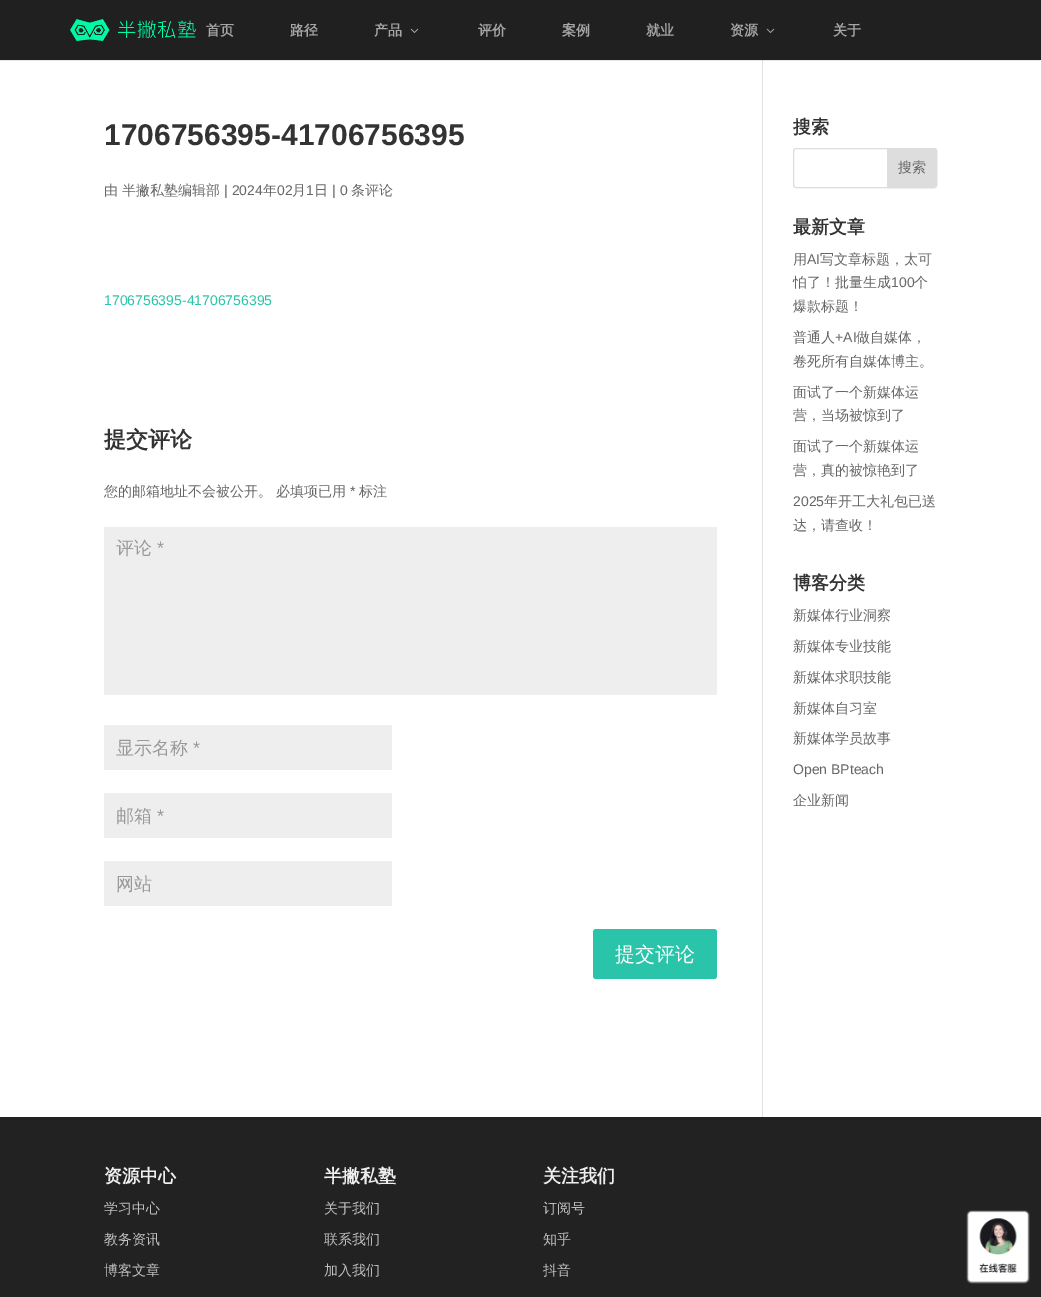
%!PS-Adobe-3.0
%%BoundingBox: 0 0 1041 1297
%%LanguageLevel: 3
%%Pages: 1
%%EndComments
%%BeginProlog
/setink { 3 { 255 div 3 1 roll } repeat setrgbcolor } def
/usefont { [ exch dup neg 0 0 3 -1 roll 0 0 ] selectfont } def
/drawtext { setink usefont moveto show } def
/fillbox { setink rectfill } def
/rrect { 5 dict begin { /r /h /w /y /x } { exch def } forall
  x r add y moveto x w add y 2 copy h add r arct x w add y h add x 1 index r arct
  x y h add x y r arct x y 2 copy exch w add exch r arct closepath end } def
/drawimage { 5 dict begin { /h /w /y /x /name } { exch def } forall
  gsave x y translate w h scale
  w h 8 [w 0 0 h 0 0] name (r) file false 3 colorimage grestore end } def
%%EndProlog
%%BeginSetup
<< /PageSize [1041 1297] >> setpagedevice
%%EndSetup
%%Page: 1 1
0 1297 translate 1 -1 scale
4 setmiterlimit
0 0 1041 1297 255 255 255 fillbox
0 60 1041 1 230 230 230 fillbox
0 0 1041 60 32 32 32 fillbox
(assets/img1.rgb) 70 19 126 22 drawimage
(首页) 206 35 /WenQuanYiZenHei-Bold 14 166 166 166 drawtext
(路径) 290 35 /WenQuanYiZenHei-Bold 14 166 166 166 drawtext
(产品) 374 35 /WenQuanYiZenHei-Bold 14 166 166 166 drawtext
(assets/img2.rgb) 410 28 9 5 drawimage
(评价) 478 35 /WenQuanYiZenHei-Bold 14 166 166 166 drawtext
(案例) 562 35 /WenQuanYiZenHei-Bold 14 166 166 166 drawtext
(就业) 646 35 /WenQuanYiZenHei-Bold 14 166 166 166 drawtext
(资源) 730 35 /WenQuanYiZenHei-Bold 14 166 166 166 drawtext
(assets/img2.rgb) 766 28 9 5 drawimage
(关于) 833 35 /WenQuanYiZenHei-Bold 14 166 166 166 drawtext
762 60 1 1057 226 226 226 fillbox
762 60 1 1 203 203 203 fillbox
(1706756395-41706756395) 104 145 /LiberationSans-Bold 30 51 51 51 drawtext
(由) 104 195 /WenQuanYiZenHei-Medium 14 102 102 102 drawtext
(半撇私塾编辑部) 122 195 /WenQuanYiZenHei-Medium 14 102 102 102 drawtext
(| 2024) 224 195 /LiberationSans-Regular 14 102 102 102 drawtext
(年) 263 195 /WenQuanYiZenHei-Medium 14 102 102 102 drawtext
(02) 277 195 /LiberationSans-Regular 14 102 102 102 drawtext
(月) 292 195 /WenQuanYiZenHei-Medium 14 102 102 102 drawtext
(1) 306 195 /LiberationSans-Regular 14 102 102 102 drawtext
(日) 314 195 /WenQuanYiZenHei-Medium 14 102 102 102 drawtext
(| 0) 332 195 /LiberationSans-Regular 14 102 102 102 drawtext
(条评论) 351 195 /WenQuanYiZenHei-Medium 14 102 102 102 drawtext
(1706756395-41706756395) 104 305 /LiberationSans-Regular 14 41 196 169 drawtext
(提交评论) 104 447 /WenQuanYiZenHei-Bold 22 51 51 51 drawtext
(您的邮箱地址不会被公开。) 104 496 /WenQuanYiZenHei-Medium 14 102 102 102 drawtext
(必填项已用) 276 496 /WenQuanYiZenHei-Medium 14 102 102 102 drawtext
(*) 350 496 /LiberationSans-Regular 14 102 102 102 drawtext
(标注) 359 496 /WenQuanYiZenHei-Medium 14 102 102 102 drawtext
104 527 613 168 238 238 238 fillbox
(评论) 116 554 /WenQuanYiZenHei-Medium 18 153 153 153 drawtext
(*) 157 554 /LiberationSans-Regular 18 153 153 153 drawtext
104 725 288 45 238 238 238 fillbox
(显示名称) 116 754 /WenQuanYiZenHei-Medium 18 153 153 153 drawtext
(*) 193 754 /LiberationSans-Regular 18 153 153 153 drawtext
104 793 288 45 238 238 238 fillbox
(邮箱) 116 822 /WenQuanYiZenHei-Medium 18 153 153 153 drawtext
(*) 157 822 /LiberationSans-Regular 18 153 153 153 drawtext
104 861 288 45 238 238 238 fillbox
(网站) 116 890 /WenQuanYiZenHei-Medium 18 153 153 153 drawtext
41 196 169 setink
593 929 124 50 3 rrect fill
(提交评论) 615 961 /WenQuanYiZenHei-Medium 20 255 255 255 drawtext
(搜索) 793 133 /WenQuanYiZenHei-Bold 18 51 51 51 drawtext
221 221 221 setink
793.5 148.5 143 39 2.5 rrect stroke
887.5 148.5 moveto 934 148.5 lineto 935.5 148.5 936.5 149.5 936.5 151 curveto 936.5 185 lineto 936.5 186.5 935.5 187.5 934 187.5 curveto 887.5 187.5 lineto closepath gsave fill grestore
stroke
(搜索) 898 172 /WenQuanYiZenHei-Medium 14 102 102 102 drawtext
(最新文章) 793 233 /WenQuanYiZenHei-Bold 18 51 51 51 drawtext
(用) 793 264 /WenQuanYiZenHei-Medium 14 102 102 102 drawtext
(AI) 807 264 /LiberationSans-Regular 14 102 102 102 drawtext
(写文章标题，太可) 820 264 /WenQuanYiZenHei-Medium 14 102 102 102 drawtext
(怕了！批量生成) 793 287 /WenQuanYiZenHei-Medium 14 102 102 102 drawtext
(100) 891 287 /LiberationSans-Regular 14 102 102 102 drawtext
(个) 914 287 /WenQuanYiZenHei-Medium 14 102 102 102 drawtext
(爆款标题！) 793 311 /WenQuanYiZenHei-Medium 14 102 102 102 drawtext
(普通人) 793 342 /WenQuanYiZenHei-Medium 14 102 102 102 drawtext
(+AI) 835 342 /LiberationSans-Regular 14 102 102 102 drawtext
(做自媒体，) 856 342 /WenQuanYiZenHei-Medium 14 102 102 102 drawtext
(卷死所有自媒体博主。) 793 366 /WenQuanYiZenHei-Medium 14 102 102 102 drawtext
(面试了一个新媒体运) 793 397 /WenQuanYiZenHei-Medium 14 102 102 102 drawtext
(营，当场被惊到了) 793 420 /WenQuanYiZenHei-Medium 14 102 102 102 drawtext
(面试了一个新媒体运) 793 451 /WenQuanYiZenHei-Medium 14 102 102 102 drawtext
(营，真的被惊艳到了) 793 475 /WenQuanYiZenHei-Medium 14 102 102 102 drawtext
(2025) 793 506 /LiberationSans-Regular 14 102 102 102 drawtext
(年开工大礼包已送) 824 506 /WenQuanYiZenHei-Medium 14 102 102 102 drawtext
(达，请查收！) 793 530 /WenQuanYiZenHei-Medium 14 102 102 102 drawtext
(博客分类) 793 589 /WenQuanYiZenHei-Bold 18 51 51 51 drawtext
(新媒体行业洞察) 793 620 /WenQuanYiZenHei-Medium 14 102 102 102 drawtext
(新媒体专业技能) 793 651 /WenQuanYiZenHei-Medium 14 102 102 102 drawtext
(新媒体求职技能) 793 682 /WenQuanYiZenHei-Medium 14 102 102 102 drawtext
(新媒体自习室) 793 713 /WenQuanYiZenHei-Medium 14 102 102 102 drawtext
(新媒体学员故事) 793 743 /WenQuanYiZenHei-Medium 14 102 102 102 drawtext
(Open BPteach) 793 774 /LiberationSans-Regular 14 102 102 102 drawtext
(企业新闻) 793 805 /WenQuanYiZenHei-Medium 14 102 102 102 drawtext
0 1117 1041 180 34 34 34 fillbox
(资源中心) 104 1182 /WenQuanYiZenHei-Bold 18 238 238 238 drawtext
(学习中心) 104 1213 /WenQuanYiZenHei-Medium 14 193 193 193 drawtext
(教务资讯) 104 1244 /WenQuanYiZenHei-Medium 14 193 193 193 drawtext
(博客文章) 104 1275 /WenQuanYiZenHei-Medium 14 193 193 193 drawtext
(半撇私塾) 324 1182 /WenQuanYiZenHei-Bold 18 238 238 238 drawtext
(关于我们) 324 1213 /WenQuanYiZenHei-Medium 14 193 193 193 drawtext
(联系我们) 324 1244 /WenQuanYiZenHei-Medium 14 193 193 193 drawtext
(加入我们) 324 1275 /WenQuanYiZenHei-Medium 14 193 193 193 drawtext
(关注我们) 543 1182 /WenQuanYiZenHei-Bold 18 238 238 238 drawtext
(订阅号) 543 1213 /WenQuanYiZenHei-Medium 14 193 193 193 drawtext
(知乎) 543 1244 /WenQuanYiZenHei-Medium 14 193 193 193 drawtext
(抖音) 543 1275 /WenQuanYiZenHei-Medium 14 193 193 193 drawtext
(assets/img3.rgb) 966 1210 64 74 drawimage
showpage
%%EOF
